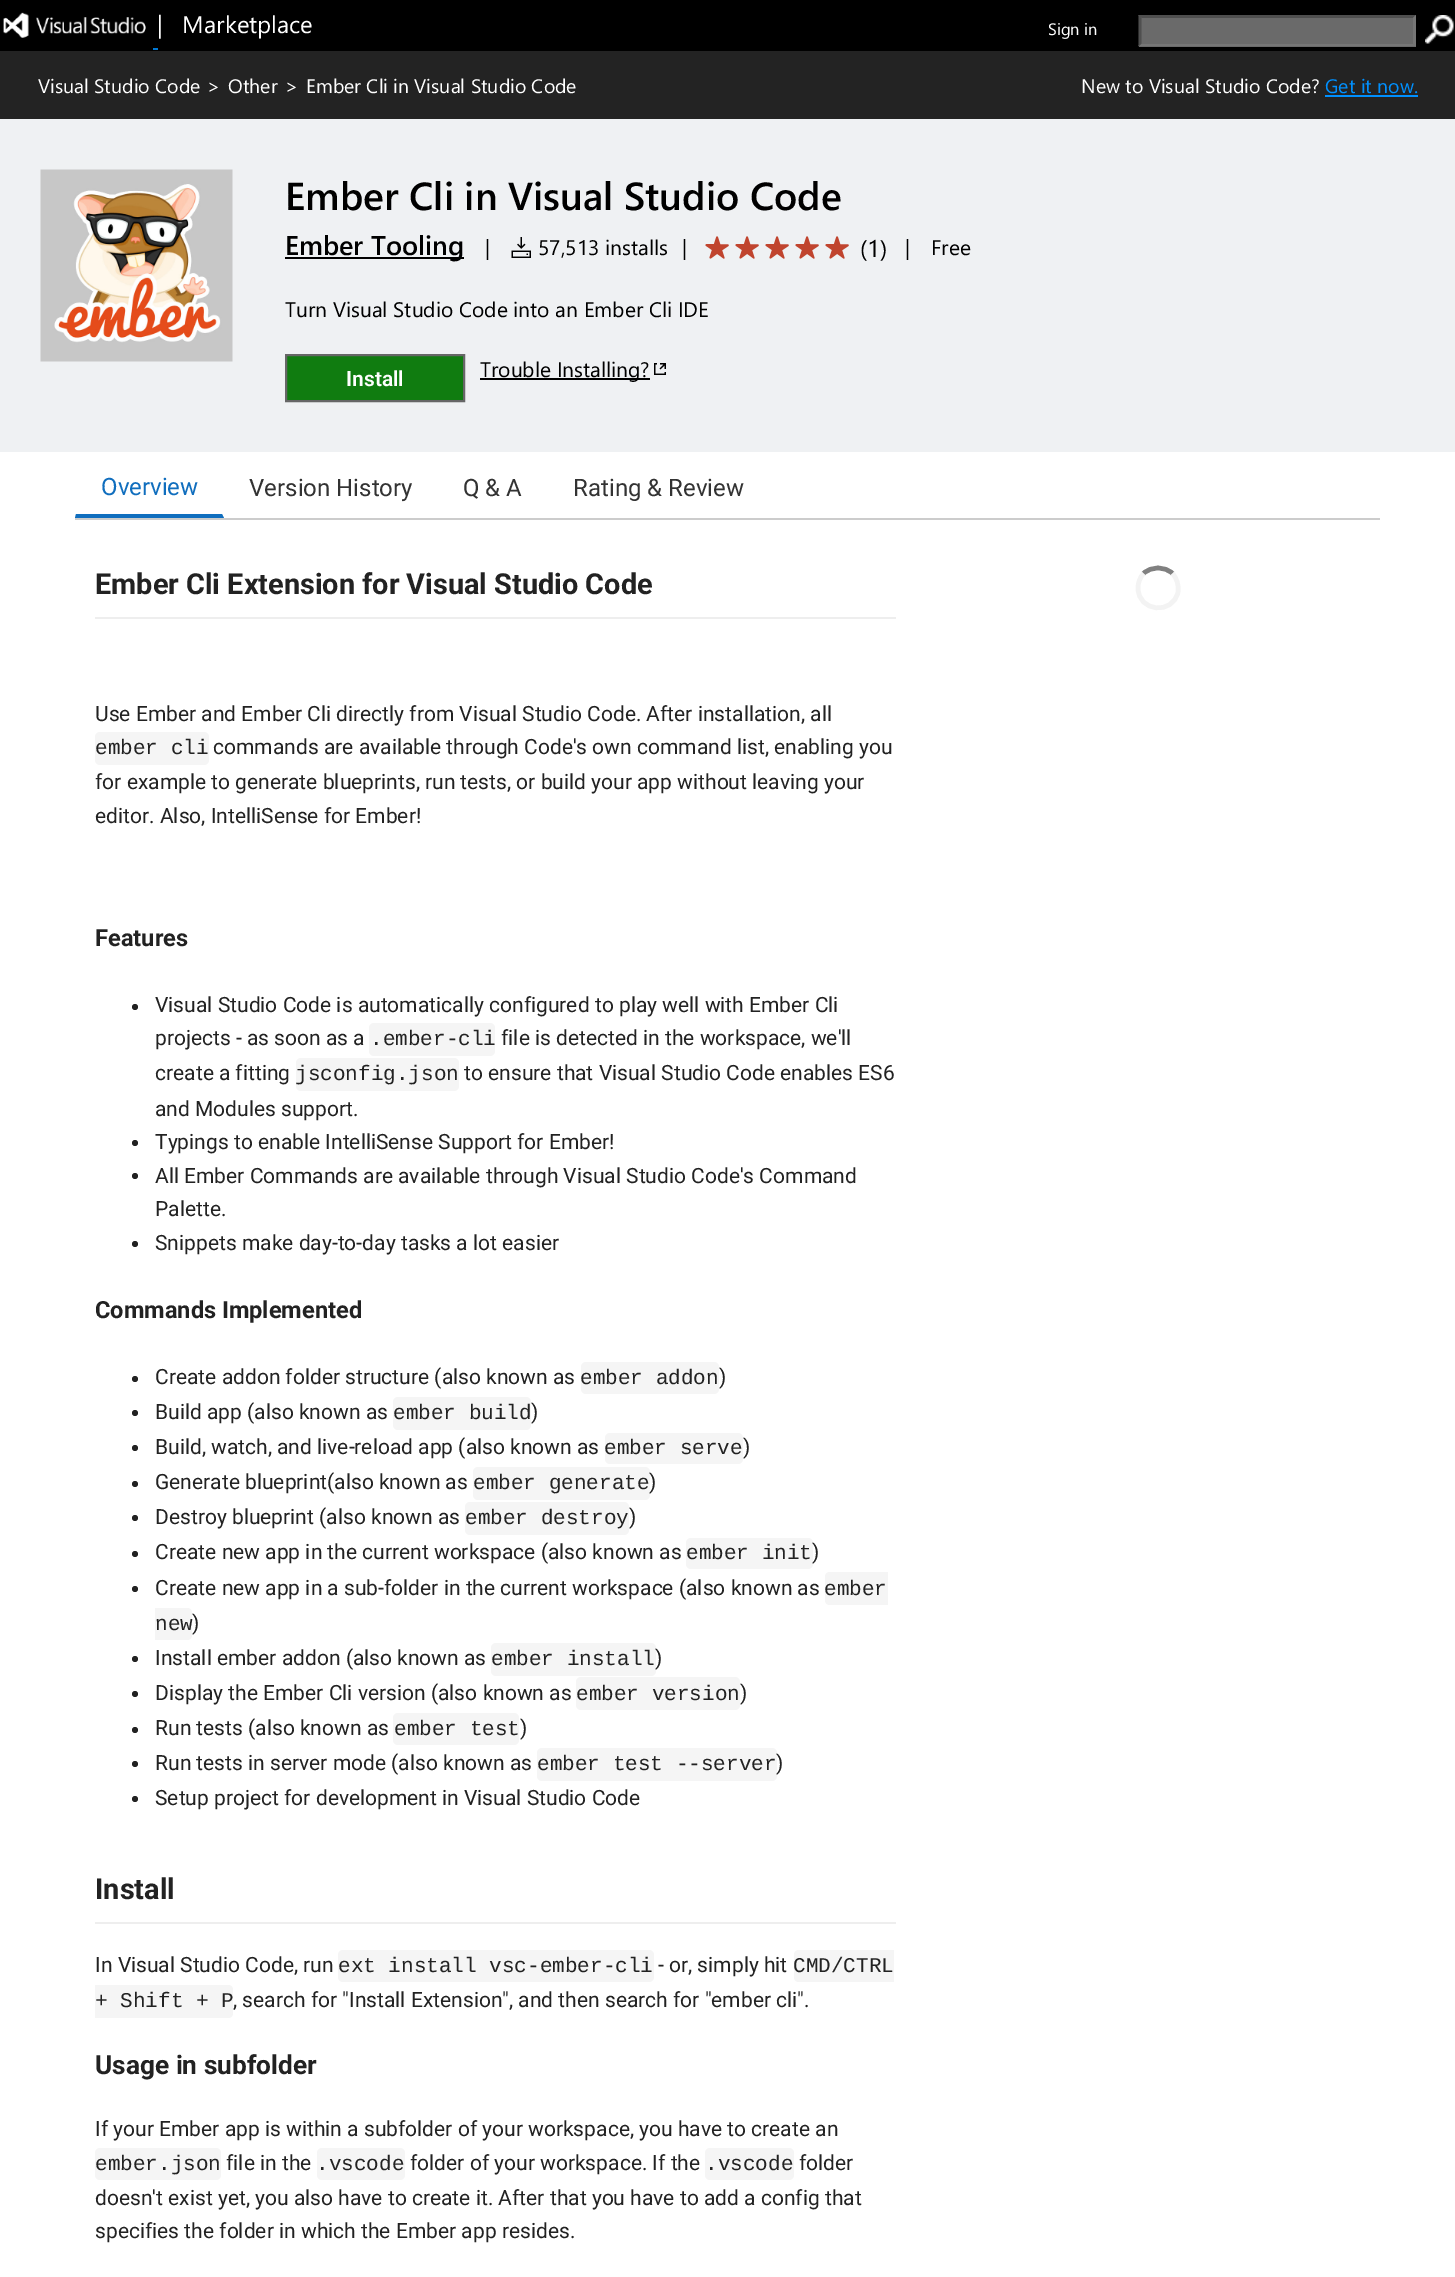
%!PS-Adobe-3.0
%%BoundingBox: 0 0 1455 2277
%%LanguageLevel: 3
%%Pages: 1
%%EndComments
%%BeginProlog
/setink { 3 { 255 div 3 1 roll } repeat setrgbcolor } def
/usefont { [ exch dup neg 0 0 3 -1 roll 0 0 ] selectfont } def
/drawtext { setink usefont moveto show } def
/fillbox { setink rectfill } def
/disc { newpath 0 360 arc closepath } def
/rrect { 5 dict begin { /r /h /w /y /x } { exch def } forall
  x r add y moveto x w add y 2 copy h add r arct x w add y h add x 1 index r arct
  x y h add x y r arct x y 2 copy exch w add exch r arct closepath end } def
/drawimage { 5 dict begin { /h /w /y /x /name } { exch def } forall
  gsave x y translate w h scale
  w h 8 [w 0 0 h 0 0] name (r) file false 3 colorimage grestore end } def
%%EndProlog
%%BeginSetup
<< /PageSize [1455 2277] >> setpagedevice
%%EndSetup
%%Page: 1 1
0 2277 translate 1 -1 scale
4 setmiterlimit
0 0 1455 2277 255 255 255 fillbox
0 0 1455 51 0 0 0 fillbox
(assets/img1.rgb) 3 12 143 26 drawimage
(|   Marketplace) 157 33 /SegoeUI-Regular 24 255 255 255 drawtext
153 48 5 2 0 120 212 fillbox
(Sign in) 1048 35 /SegoeUI-Regular 16.5 255 255 255 drawtext
1139 15 277 32 106 106 106 fillbox
79 79 79 setink
1138 15 moveto 1416 15 lineto 1413 18 lineto 1142 18 lineto closepath fill
118 118 118 setink
1416 15 moveto 1416 46.5 lineto 1413 43.5 lineto 1413 18 lineto closepath fill
1416 46 moveto 1138 46 lineto 1142 44 lineto 1413 44 lineto closepath fill
79 79 79 setink
1138.5 46.5 moveto 1138.5 15 lineto 1141.5 18 lineto 1141.5 43.5 lineto closepath fill
(assets/img2.rgb) 1425 15 29 29 drawimage
0 51 1455 68 35 35 35 fillbox
(Visual Studio Code) 38 93 /SegoeUI-Regular 19.5 255 255 255 drawtext
(>) 207 93 /SegoeUI-Regular 19.5 255 255 255 drawtext
(Other) 228 93 /SegoeUI-Regular 19.5 255 255 255 drawtext
(>) 285 93 /SegoeUI-Regular 19.5 255 255 255 drawtext
(Ember Cli in Visual Studio Code) 306 93 /SegoeUI-Regular 19.5 255 255 255 drawtext
(New to Visual Studio Code?) 1081 93 /SegoeUI-Regular 19.5 255 255 255 drawtext
(Get it now.) 1325 93 /SegoeUI-Regular 19.5 0 144 255 drawtext
1325 95 93 2 0 144 255 fillbox
0 119 1455 333 239 241 243 fillbox
(assets/img3.rgb) 40 169 193 193 drawimage
(Ember Cli in Visual Studio Code) 285 210 /SegoeUI-SemiBold 39 0 0 0 drawtext
285 257 179 2 0 0 0 fillbox
(Ember Tooling) 285 255 /SegoeUI-SemiBold 27 0 0 0 drawtext
(|) 485 255 /SegoeUI-Regular 21 0 0 0 drawtext
(assets/img4.rgb) 511 237 20 21 drawimage
(57,513 installs) 538 255 /SegoeUI-Regular 21 0 0 0 drawtext
(|) 682 255 /SegoeUI-Regular 21 0 0 0 drawtext
(assets/img5.rgb) 705 236 24 23 drawimage
(assets/img5.rgb) 735 236 24 23 drawimage
(assets/img5.rgb) 765 236 24 23 drawimage
(assets/img5.rgb) 795 236 24 23 drawimage
(assets/img5.rgb) 825 236 24 23 drawimage
(\(1\)) 860 257 /SegoeUI-Regular 24 0 0 0 drawtext
(|) 905 255 /SegoeUI-Regular 21 0 0 0 drawtext
(Free) 931 255 /SegoeUI-Regular 21 0 0 0 drawtext
(Turn Visual Studio Code into an Ember Cli IDE) 285 317 /SegoeUI-Regular 21 0 0 0 drawtext
16 124 16 setink
286 355 moveto 464 355 lineto 464 401 lineto 286 401 lineto closepath gsave fill grestore
102 102 102 setink
2 setlinewidth
stroke
(Install) 346 386 /Roboto-SemiBold 21 255 255 255 drawtext
480 378 170 2 0 0 0 fillbox
(Trouble Installing?) 480 377 /SegoeUI-Regular 21 0 0 0 drawtext
(assets/img6.rgb) 654 363 12 12 drawimage
75 518 1305 2 204 204 204 fillbox
16 110 190 setink
224 518 moveto 75 518 lineto 76 514 lineto 222 514 lineto closepath fill
(Overview) 101 495 /Roboto-Regular 24 16 110 190 drawtext
(Version History) 249 496 /Roboto-Regular 24 51 51 51 drawtext
(Q & A) 463 496 /Roboto-Regular 24 51 51 51 drawtext
(Rating & Review) 573 496 /Roboto-Regular 24 51 51 51 drawtext
95 617 801 2 238 238 238 fillbox
(Ember Cli Extension for Visual Studio Code) 95 594 /Roboto-Bold 28.9 34 34 34 drawtext
(Use Ember and Ember Cli directly from Visual Studio Code. After installation, all) 95 721 /Roboto-Regular 21 34 34 34 drawtext
245 245 245 setink
95 732 114 33 5 rrect fill
(ember cli) 95 754 /LiberationMono-Regular 21 34 34 34 drawtext
(commands are available through Code's own command list, enabling you) 213 754 /Roboto-Regular 21 34 34 34 drawtext
(for example to generate blueprints, run tests, or build your app without leaving your) 95 789 /Roboto-Regular 21 34 34 34 drawtext
(editor. Also, IntelliSense for Ember!) 95 823 /Roboto-Regular 21 34 34 34 drawtext
(Features) 95 946 /Roboto-Bold 23.6 34 34 34 drawtext
135 1007 3 disc fill
(Visual Studio Code is automatically configured to play well with Ember Cli) 155 1012 /Roboto-Regular 21 34 34 34 drawtext
(projects - as soon as a) 155 1045 /Roboto-Regular 21 34 34 34 drawtext
245 245 245 setink
369 1023 126 33 5 rrect fill
(.ember-cli) 370 1045 /LiberationMono-Regular 21 34 34 34 drawtext
(file is detected in the workspace, we'll) 501 1045 /Roboto-Regular 21 34 34 34 drawtext
(create a fitting) 155 1080 /Roboto-Regular 21 34 34 34 drawtext
245 245 245 setink
296 1058 163 33 5 rrect fill
(jsconfig.json) 295 1080 /LiberationMono-Regular 21 34 34 34 drawtext
(to ensure that Visual Studio Code enables ES6) 464 1080 /Roboto-Regular 21 34 34 34 drawtext
(and Modules support.) 155 1116 /Roboto-Regular 21 34 34 34 drawtext
135 1143 3 disc fill
(Typings to enable IntelliSense Support for Ember!) 155 1149 /Roboto-Regular 21 34 34 34 drawtext
135 1176 3 disc fill
(All Ember Commands are available through Visual Studio Code's Command) 155 1183 /Roboto-Regular 21 34 34 34 drawtext
(Palette.) 155 1216 /Roboto-Regular 21 34 34 34 drawtext
135 1244 3 disc fill
(Snippets make day-to-day tasks a lot easier) 155 1250 /Roboto-Regular 21 34 34 34 drawtext
(Commands Implemented) 95 1318 /Roboto-Bold 23.6 34 34 34 drawtext
135 1379 3 disc fill
(Create addon folder structure \(also known as) 155 1384 /Roboto-Regular 21 34 34 34 drawtext
245 245 245 setink
581 1362 138 32 5 rrect fill
(ember addon) 580 1384 /LiberationMono-Regular 21 34 34 34 drawtext
(\)) 719 1384 /Roboto-Regular 21 34 34 34 drawtext
135 1413 3 disc fill
(Build app \(also known as) 155 1419 /Roboto-Regular 21 34 34 34 drawtext
245 245 245 setink
393 1397 138 33 5 rrect fill
(ember build) 393 1419 /LiberationMono-Regular 21 34 34 34 drawtext
(\)) 531 1419 /Roboto-Regular 21 34 34 34 drawtext
135 1448 3 disc fill
(Build, watch, and live-reload app \(also known as) 155 1454 /Roboto-Regular 21 34 34 34 drawtext
245 245 245 setink
605 1433 138 31 5 rrect fill
(ember serve) 604 1454 /LiberationMono-Regular 21 34 34 34 drawtext
(\)) 743 1454 /Roboto-Regular 21 34 34 34 drawtext
135 1484 3 disc fill
(Generate blueprint\(also known as) 155 1489 /Roboto-Regular 21 34 34 34 drawtext
245 245 245 setink
473 1467 177 33 5 rrect fill
(ember generate) 473 1489 /LiberationMono-Regular 21 34 34 34 drawtext
(\)) 649 1489 /Roboto-Regular 21 34 34 34 drawtext
135 1518 3 disc fill
(Destroy blueprint \(also known as) 155 1524 /Roboto-Regular 21 34 34 34 drawtext
245 245 245 setink
465 1502 164 33 5 rrect fill
(ember destroy) 465 1524 /LiberationMono-Regular 21 34 34 34 drawtext
(\)) 629 1524 /Roboto-Regular 21 34 34 34 drawtext
135 1554 3 disc fill
(Create new app in the current workspace \(also known as) 155 1559 /Roboto-Regular 21 34 34 34 drawtext
245 245 245 setink
686 1538 127 31 5 rrect fill
(ember init) 686 1559 /LiberationMono-Regular 21 34 34 34 drawtext
(\)) 812 1559 /Roboto-Regular 21 34 34 34 drawtext
135 1589 3 disc fill
(Create new app in a sub-folder in the current workspace \(also known as) 155 1595 /Roboto-Regular 21 34 34 34 drawtext
245 245 245 setink
830 1572 moveto 888 1572 lineto 888 1605 lineto 830 1605 lineto 827 1605 825 1603 825 1600 curveto 825 1577 lineto 825 1574 827 1572 830 1572 curveto closepath fill
(ember) 824 1595 /LiberationMono-Regular 21 34 34 34 drawtext
245 245 245 setink
155 1608 moveto 187 1608 lineto 190 1608 192 1610 192 1613 curveto 192 1635 lineto 192 1638 190 1640 187 1640 curveto 155 1640 lineto closepath fill
(new) 155 1630 /LiberationMono-Regular 21 34 34 34 drawtext
(\)) 192 1630 /Roboto-Regular 21 34 34 34 drawtext
135 1659 3 disc fill
(Install ember addon \(also known as) 155 1665 /Roboto-Regular 21 34 34 34 drawtext
245 245 245 setink
491 1643 165 33 5 rrect fill
(ember install) 491 1665 /LiberationMono-Regular 21 34 34 34 drawtext
(\)) 655 1665 /Roboto-Regular 21 34 34 34 drawtext
135 1694 3 disc fill
(Display the Ember Cli version \(also known as) 155 1700 /Roboto-Regular 21 34 34 34 drawtext
245 245 245 setink
576 1677 164 33 5 rrect fill
(ember version) 576 1700 /LiberationMono-Regular 21 34 34 34 drawtext
(\)) 740 1700 /Roboto-Regular 21 34 34 34 drawtext
135 1730 3 disc fill
(Run tests \(also known as) 155 1735 /Roboto-Regular 21 34 34 34 drawtext
245 245 245 setink
393 1713 126 32 5 rrect fill
(ember test) 394 1735 /LiberationMono-Regular 21 34 34 34 drawtext
(\)) 520 1735 /Roboto-Regular 21 34 34 34 drawtext
135 1764 3 disc fill
(Run tests in server mode \(also known as) 155 1770 /Roboto-Regular 21 34 34 34 drawtext
245 245 245 setink
537 1748 240 33 5 rrect fill
(ember test --server) 537 1770 /LiberationMono-Regular 21 34 34 34 drawtext
(\)) 776 1770 /Roboto-Regular 21 34 34 34 drawtext
135 1799 3 disc fill
(Setup project for development in Visual Studio Code) 155 1805 /Roboto-Regular 21 34 34 34 drawtext
95 1922 801 2 238 238 238 fillbox
(Install) 95 1899 /Roboto-Bold 28.9 34 34 34 drawtext
(In Visual Studio Code, run) 95 1972 /Roboto-Regular 21 34 34 34 drawtext
245 245 245 setink
338 1950 316 32 5 rrect fill
(ext install vsc-ember-cli) 338 1972 /LiberationMono-Regular 21 34 34 34 drawtext
(- or, simply hit) 658 1972 /Roboto-Regular 21 34 34 34 drawtext
245 245 245 setink
799 1950 moveto 894 1950 lineto 894 1982 lineto 799 1982 lineto 796 1982 794 1980 794 1977 curveto 794 1955 lineto 794 1952 796 1950 799 1950 curveto closepath fill
(CMD/CTRL) 793 1972 /LiberationMono-Regular 21 34 34 34 drawtext
245 245 245 setink
95 1985 moveto 228 1985 lineto 231 1985 233 1987 233 1990 curveto 233 2013 lineto 233 2016 231 2018 228 2018 curveto 95 2018 lineto closepath fill
(+ Shift + P) 95 2007 /LiberationMono-Regular 21 34 34 34 drawtext
(, search for "Install Extension", and then search for "ember cli".) 233 2007 /Roboto-Regular 21 34 34 34 drawtext
(Usage in subfolder) 95 2074 /Roboto-Bold 26.25 34 34 34 drawtext
(If your Ember app is within a subfolder of your workspace, you have to create an) 95 2136 /Roboto-Regular 21 34 34 34 drawtext
245 245 245 setink
95 2148 126 32 5 rrect fill
(ember.json) 95 2170 /LiberationMono-Regular 21 34 34 34 drawtext
(file in the) 226 2170 /Roboto-Regular 21 34 34 34 drawtext
245 245 245 setink
317 2148 88 32 5 rrect fill
(.vscode) 316 2170 /LiberationMono-Regular 21 34 34 34 drawtext
(folder of your workspace. If the) 410 2170 /Roboto-Regular 21 34 34 34 drawtext
245 245 245 setink
705 2148 89 32 5 rrect fill
(.vscode) 705 2170 /LiberationMono-Regular 21 34 34 34 drawtext
(folder) 799 2170 /Roboto-Regular 21 34 34 34 drawtext
(doesn't exist yet, you also have to create it. After that you have to add a config that) 95 2205 /Roboto-Regular 21 34 34 34 drawtext
(specifies the folder in which the Ember app resides.) 95 2238 /Roboto-Regular 21 34 34 34 drawtext
128 128 128 setink
4.5 setlinewidth
1143.5 573.5 moveto 1151.5 566 1164.5 566 1172.5 573.5 curveto stroke
243 243 243 setink
1172.5 573.5 moveto 1177 578.5 1179 585.5 1178 592 curveto 1173 615.5 1138 612 1138 588 curveto 1138 582.5 1140 577.5 1143.5 573.5 curveto stroke
showpage
%%EOF
